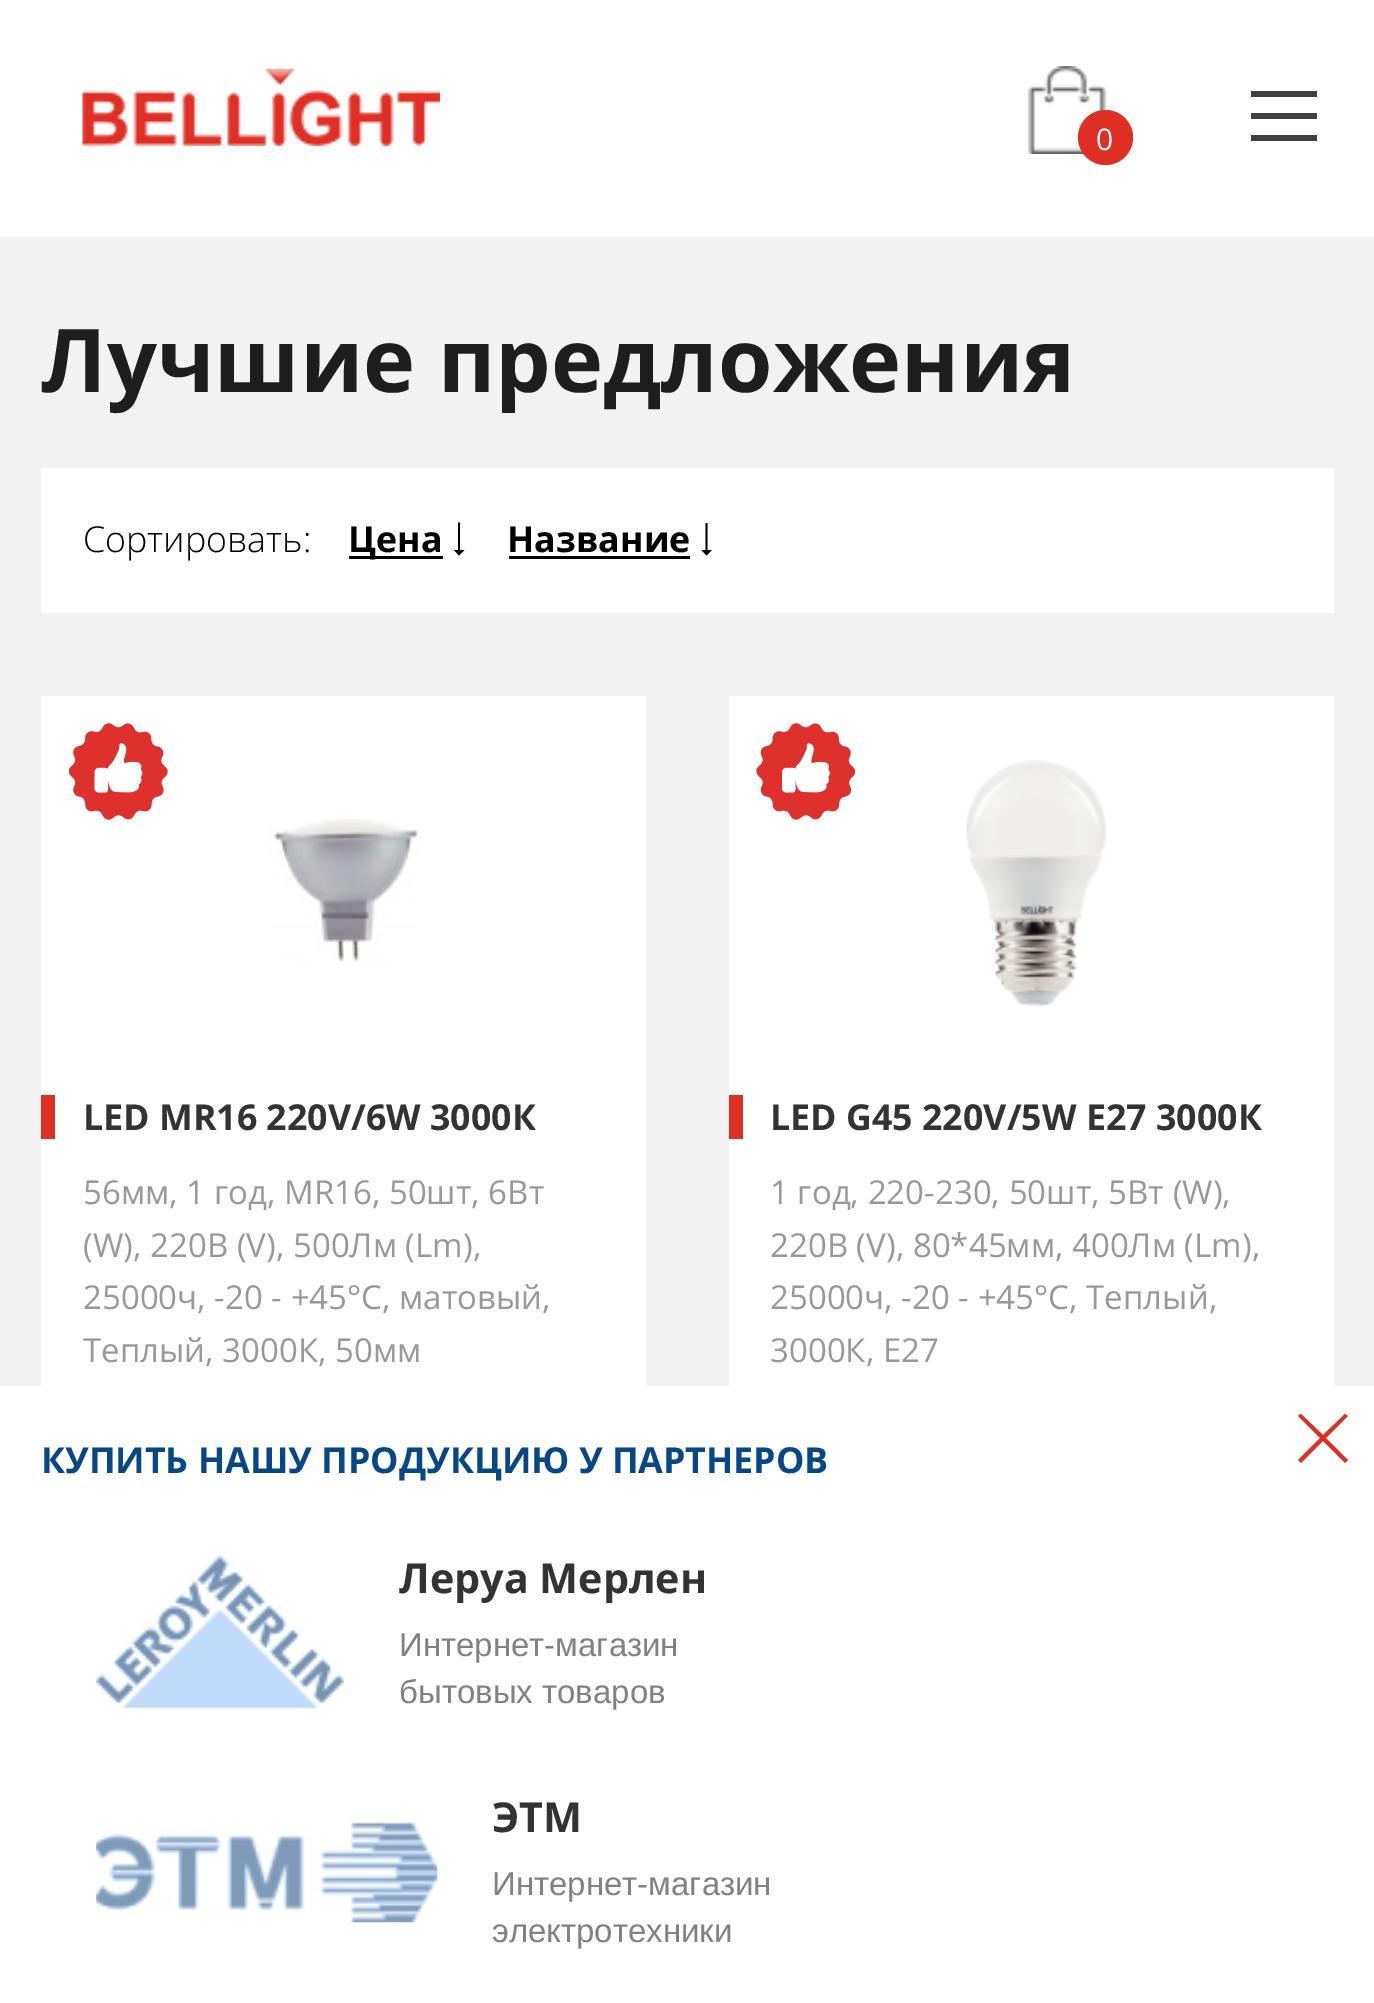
%!PS-Adobe-3.0
%%BoundingBox: 0 0 1374 2003
%%LanguageLevel: 3
%%Pages: 1
%%EndComments
%%BeginProlog
/setink { 3 { 255 div 3 1 roll } repeat setrgbcolor } def
/usefont { [ exch dup neg 0 0 3 -1 roll 0 0 ] selectfont } def
/drawtext { setink usefont moveto show } def
/fillbox { setink rectfill } def
/disc { newpath 0 360 arc closepath } def
/drawimage { 5 dict begin { /h /w /y /x /name } { exch def } forall
  gsave x y translate w h scale
  w h 8 [w 0 0 h 0 0] name (r) file false 3 colorimage grestore end } def
%%EndProlog
%%BeginSetup
<< /PageSize [1374 2003] >> setpagedevice
%%EndSetup
%%Page: 1 1
0 2003 translate 1 -1 scale
4 setmiterlimit
0 0 1374 2003 242 242 242 fillbox
0 0 1374 237 255 255 255 fillbox
(assets/img1.rgb) 82 68 358 78 drawimage
(assets/img2.rgb) 1027 66 80 88 drawimage
223 47 37 setink
1105.5 137.5 27.5 disc fill
(0) 1096 150 /OpenSans-Regular 30 255 255 255 drawtext
1251 91 66 6 63 63 63 fillbox
1251 113 66 6 63 63 63 fillbox
1251 135 66 6 63 63 63 fillbox
(Лучшие предложения) 41 392 /OpenSans-Bold 88 30 30 30 drawtext
41 468 1293 145 255 255 255 fillbox
(Сортировать:) 83 552 /OpenSans-Light 35.75 0 0 0 drawtext
349 556 94 3 0 0 0 fillbox
(Цена) 348 552 /OpenSans-Bold 35.75 0 0 0 drawtext
460 550 moveto 460 522.5 lineto 458 522.5 lineto 458 550 lineto 454 550 lineto 459 555.5 lineto 464.5 550 lineto closepath fill
(Название) 507 552 /OpenSans-Bold 35.75 0 0 0 drawtext
509 556 181 3 0 0 0 fillbox
gsave
701 523 11 33 rectclip
707.5 550 moveto 707.5 522.5 lineto 705.5 522.5 lineto 705.5 550 lineto 701.5 550 lineto 706.5 555.5 lineto 712 550 lineto closepath fill
grestore
41 696 605 690 255 255 255 fillbox
(assets/img3.rgb) 69 723 99 97 drawimage
(assets/img4.rgb) 269 819 152 144 drawimage
41 1095 14 44 223 47 37 fillbox
(LED MR16 220V/6W 3000К) 83 1130 /OpenSans-Bold 35.75 51 51 51 drawtext
(56мм, 1 год, MR16, 50шт, 6Вт) 83 1204 /OpenSans-Regular 33 153 153 153 drawtext
(\(W\), 220В \(V\), 500Лм \(Lm\),) 83 1257 /OpenSans-Regular 33 153 153 153 drawtext
(25000ч, -20 - +45°С, матовый,) 83 1309 /OpenSans-Regular 33 153 153 153 drawtext
(Теплый, 3000К, 50мм) 83 1362 /OpenSans-Regular 33 153 153 153 drawtext
729 696 605 690 255 255 255 fillbox
(assets/img5.rgb) 756 723 99 97 drawimage
(assets/img6.rgb) 966 760 141 247 drawimage
729 1095 14 44 223 47 37 fillbox
(LED G45 220V/5W E27 3000К) 770 1130 /OpenSans-Bold 35.75 51 51 51 drawtext
(1 год, 220-230, 50шт, 5Вт \(W\),) 770 1204 /OpenSans-Regular 33 153 153 153 drawtext
(220В \(V\), 80*45мм, 400Лм \(Lm\),) 770 1257 /OpenSans-Regular 33 153 153 153 drawtext
(25000ч, -20 - +45°С, Теплый,) 770 1309 /OpenSans-Regular 33 153 153 153 drawtext
(3000К, E27) 770 1362 /OpenSans-Regular 33 153 153 153 drawtext
0 1386 1374 617 255 255 255 fillbox
223 47 37 setink
1348 1416 moveto 1345 1414 lineto 1323 1435 lineto 1301 1414 lineto 1298 1416 lineto 1320 1438 lineto 1298 1460 lineto 1301 1463 lineto 1323 1441 lineto 1345 1463 lineto 1348 1460 lineto 1326 1438 lineto closepath fill
(КУПИТЬ НАШУ ПРОДУКЦИЮ У ПАРТНЕРОВ) 41 1473 /OpenSans-Bold 35.75 8 71 135 drawtext
(assets/img7.rgb) 96 1555 248 154 drawimage
(Леруа Мерлен) 399 1593 /OpenSans-Bold 41.25 51 51 51 drawtext
(Интернет-магазин) 399 1656 /LiberationSans-Regular 33 130 130 130 drawtext
(бытовых товаров) 399 1703 /LiberationSans-Regular 33 130 130 130 drawtext
(assets/img8.rgb) 96 1822 342 101 drawimage
(ЭТМ) 492 1832 /OpenSans-Bold 41.25 51 51 51 drawtext
(Интернет-магазин) 492 1895 /LiberationSans-Regular 33 130 130 130 drawtext
(электротехники) 492 1942 /LiberationSans-Regular 33 130 130 130 drawtext
showpage
%%EOF
